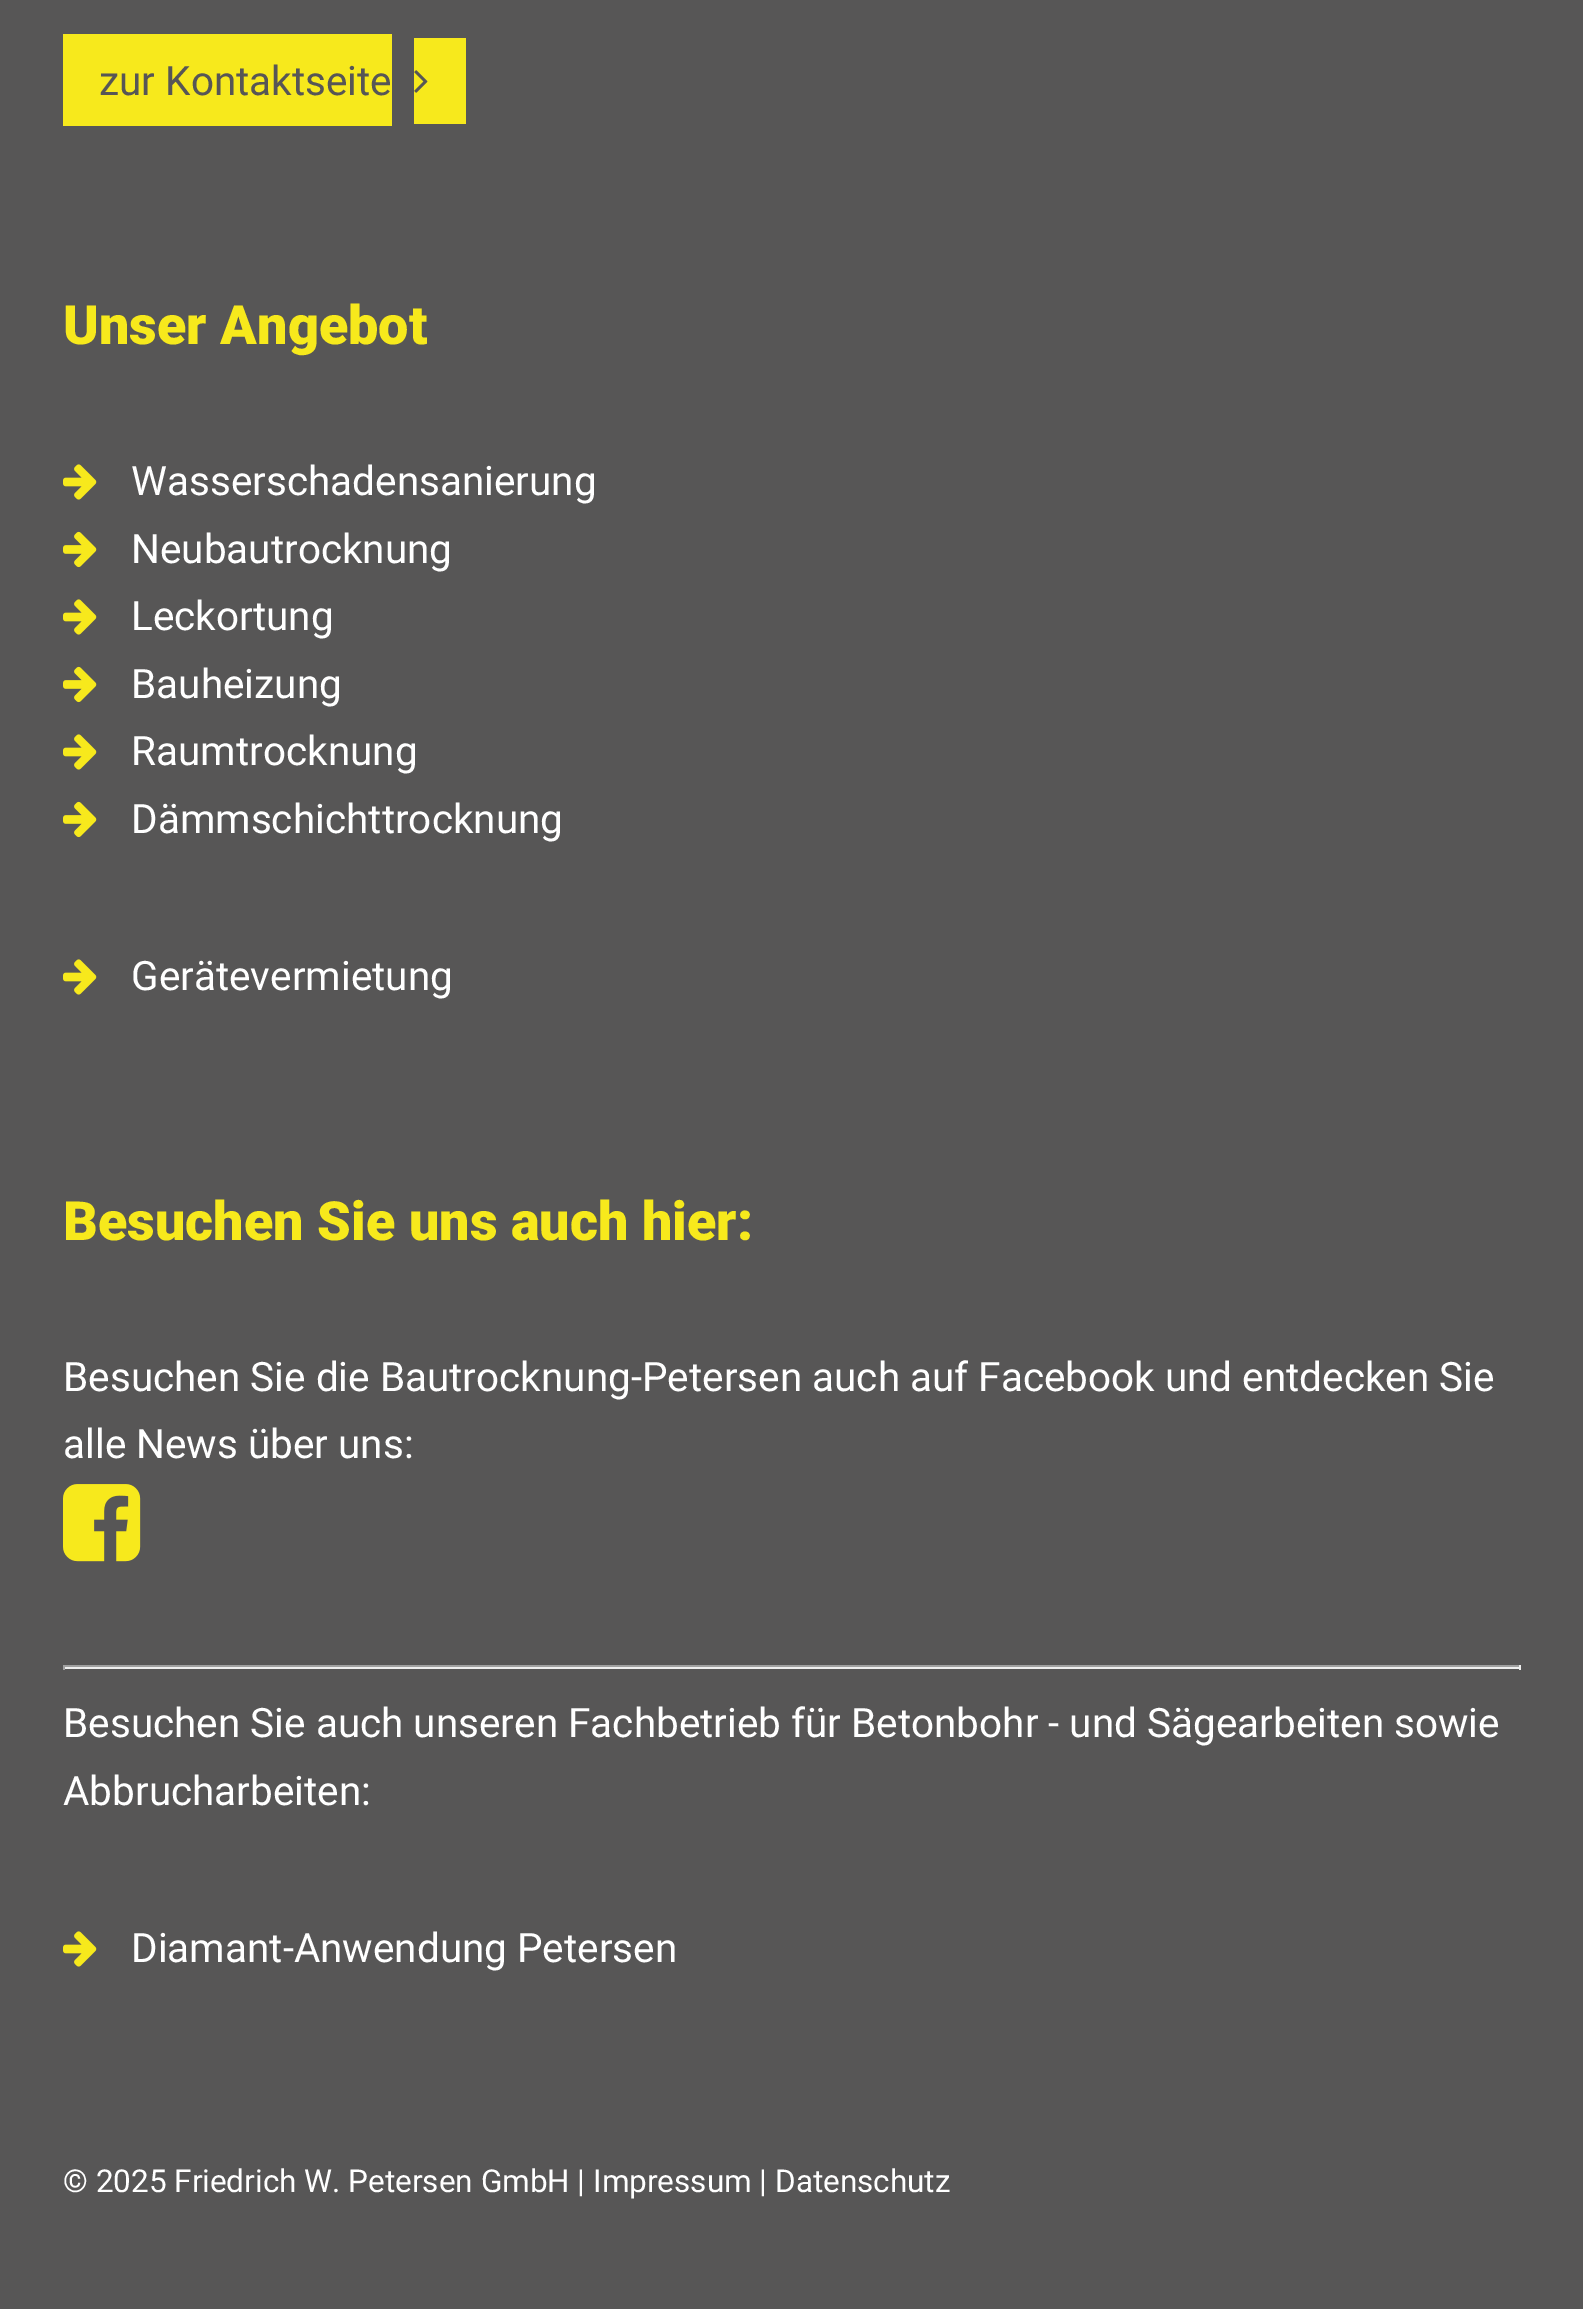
%!PS-Adobe-3.0
%%BoundingBox: 0 0 1583 2309
%%LanguageLevel: 3
%%Pages: 1
%%EndComments
%%BeginProlog
/setink { 3 { 255 div 3 1 roll } repeat setrgbcolor } def
/usefont { [ exch dup neg 0 0 3 -1 roll 0 0 ] selectfont } def
/drawtext { setink usefont moveto show } def
/fillbox { setink rectfill } def
/drawimage { 5 dict begin { /h /w /y /x /name } { exch def } forall
  gsave x y translate w h scale
  w h 8 [w 0 0 h 0 0] name (r) file false 3 colorimage grestore end } def
%%EndProlog
%%BeginSetup
<< /PageSize [1583 2309] >> setpagedevice
%%EndSetup
%%Page: 1 1
0 2309 translate 1 -1 scale
4 setmiterlimit
0 0 1583 2309 87 86 86 fillbox
63 34 329 92 247 233 28 fillbox
(zur Kontaktseite) 99 95 /Roboto-Regular 40.5 87 86 86 drawtext
414 38 52 86 247 233 28 fillbox
(assets/img1.rgb) 414 70 14 23 drawimage
(Unser Angebot) 63 344 /Roboto-Black 54 247 233 28 drawtext
(assets/img2.rgb) 63 464 34 36 drawimage
(Wasserschadensanierung) 131 495 /Roboto-Regular 40.5 255 255 255 drawtext
(assets/img3.rgb) 63 531 34 37 drawimage
(Neubautrocknung) 131 563 /Roboto-Regular 40.5 255 255 255 drawtext
(assets/img2.rgb) 63 599 34 36 drawimage
(Leckortung) 131 630 /Roboto-Regular 40.5 255 255 255 drawtext
(assets/img3.rgb) 63 666 34 37 drawimage
(Bauheizung) 131 698 /Roboto-Regular 40.5 255 255 255 drawtext
(assets/img2.rgb) 63 734 34 36 drawimage
(Raumtrocknung) 131 765 /Roboto-Regular 40.5 255 255 255 drawtext
(assets/img3.rgb) 63 801 34 37 drawimage
(Dämmschichttrocknung) 131 833 /Roboto-Regular 40.5 255 255 255 drawtext
(assets/img2.rgb) 63 959 34 36 drawimage
(Gerätevermietung) 131 990 /Roboto-Regular 40.5 255 255 255 drawtext
(Besuchen Sie uns auch hier:) 63 1240 /Roboto-Black 54 247 233 28 drawtext
(Besuchen Sie die Bautrocknung-Petersen auch auf Facebook und entdecken Sie) 63 1391 /Roboto-Regular 40.5 255 255 255 drawtext
(alle News über uns:) 63 1458 /Roboto-Regular 40.5 255 255 255 drawtext
(assets/img4.rgb) 63 1484 78 78 drawimage
63 1665 1458 2 159 159 159 fillbox
1519 1665 2 5 238 238 238 fillbox
63 1667 1458 2 238 238 238 fillbox
63 1665 2 5 159 159 159 fillbox
(Besuchen Sie auch unseren Fachbetrieb für Betonbohr - und Sägearbeiten sowie) 63 1737 /Roboto-Regular 40.5 255 255 255 drawtext
(Abbrucharbeiten:) 63 1805 /Roboto-Regular 40.5 255 255 255 drawtext
(assets/img2.rgb) 63 1931 34 36 drawimage
(Diamant-Anwendung Petersen) 131 1962 /Roboto-Regular 40.5 255 255 255 drawtext
(© 2025 Friedrich W. Petersen GmbH | Impressum | Datenschutz) 63 2192 /Roboto-Regular 31.5 255 255 255 drawtext
showpage
%%EOF
